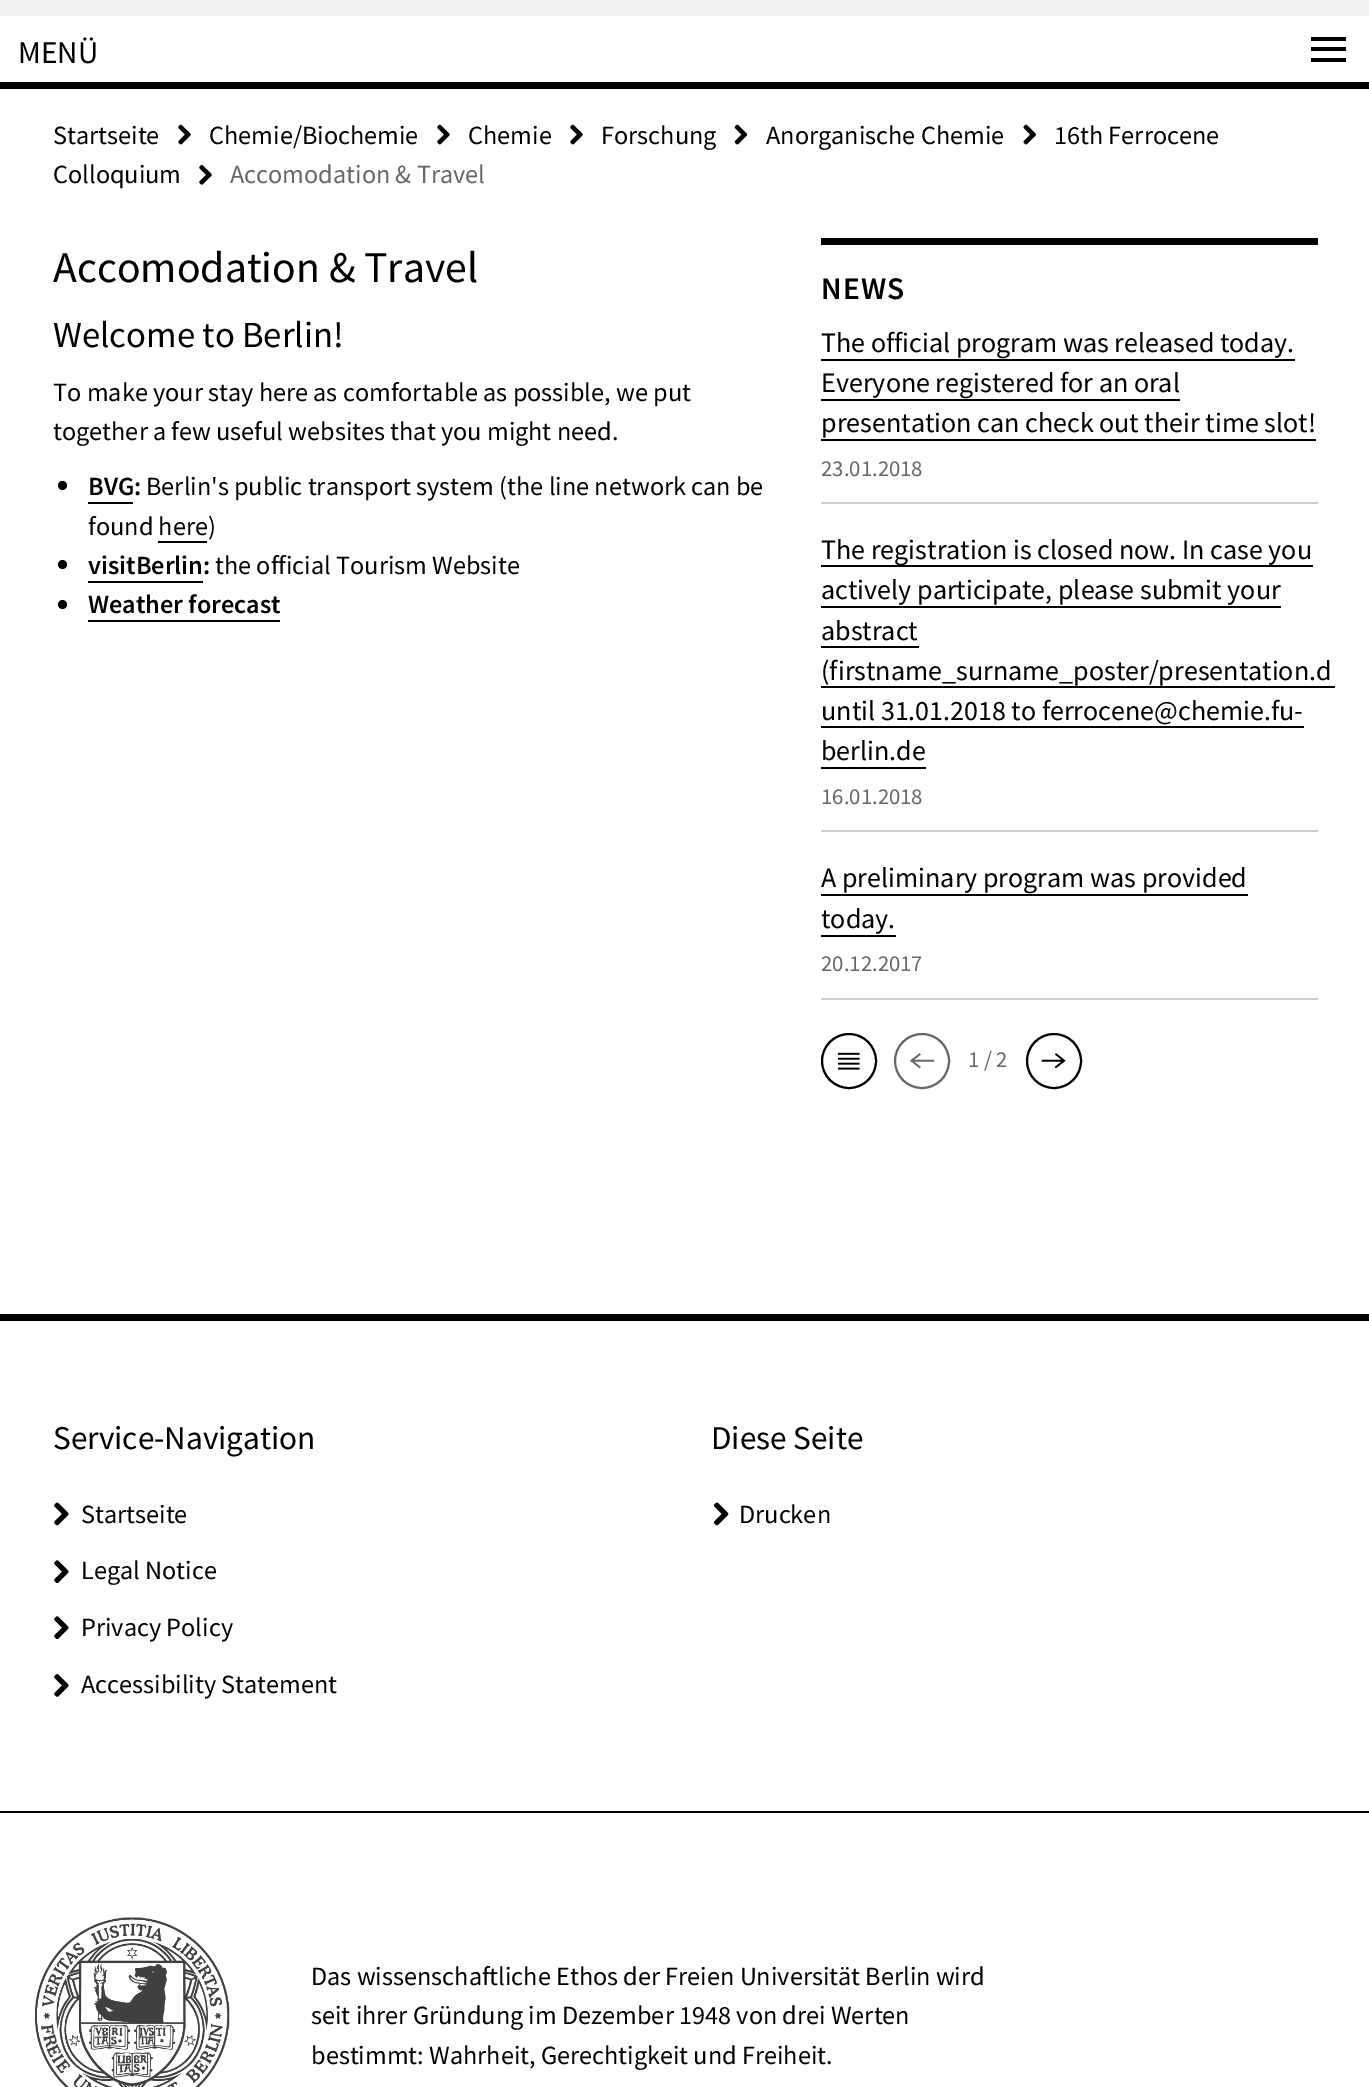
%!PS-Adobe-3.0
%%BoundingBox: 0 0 1369 2087
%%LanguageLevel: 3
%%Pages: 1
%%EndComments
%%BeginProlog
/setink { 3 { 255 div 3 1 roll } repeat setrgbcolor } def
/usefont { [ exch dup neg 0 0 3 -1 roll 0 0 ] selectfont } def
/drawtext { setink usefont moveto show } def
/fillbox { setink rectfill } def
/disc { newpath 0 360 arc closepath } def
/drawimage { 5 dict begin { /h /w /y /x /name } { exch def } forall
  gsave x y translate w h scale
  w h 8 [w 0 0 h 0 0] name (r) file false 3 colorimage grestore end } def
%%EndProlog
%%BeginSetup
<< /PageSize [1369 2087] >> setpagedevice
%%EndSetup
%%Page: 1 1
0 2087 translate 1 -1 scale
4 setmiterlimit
0 0 1369 2087 255 255 255 fillbox
0 0 1369 16 241 241 241 fillbox
0 82 1369 7 0 0 0 fillbox
(MENÜ) 18 63 /SourceSansPro-Regular 31.5 0 0 0 drawtext
1311 37 35 4 0 0 0 fillbox
1311 47 35 4 0 0 0 fillbox
1311 58 35 4 0 0 0 fillbox
(Startseite) 53 144 /SourceSansPro-Regular 26.25 0 0 0 drawtext
(assets/img1.rgb) 178 124 13 21 drawimage
(16th Ferrocene) 1054 144 /SourceSansPro-Regular 26.25 0 0 0 drawtext
(Colloquium) 53 183 /SourceSansPro-Regular 26.25 0 0 0 drawtext
(assets/img2.rgb) 199 164 13 21 drawimage
(Chemie/Biochemie) 209 144 /SourceSansPro-Regular 26.25 0 0 0 drawtext
(assets/img1.rgb) 437 124 13 21 drawimage
(Chemie) 468 144 /SourceSansPro-Regular 26.25 0 0 0 drawtext
(assets/img1.rgb) 570 124 13 21 drawimage
(Forschung) 601 144 /SourceSansPro-Regular 26.25 0 0 0 drawtext
(assets/img3.rgb) 734 124 14 21 drawimage
(Anorganische Chemie) 766 144 /SourceSansPro-Regular 26.25 0 0 0 drawtext
(assets/img4.rgb) 1023 124 13 21 drawimage
(Accomodation & Travel) 230 183 /SourceSansPro-Regular 26.25 102 102 102 drawtext
(Accomodation & Travel) 53 282 /SourceSansPro-Regular 43.75 0 0 0 drawtext
(Welcome to Berlin!) 53 347 /SourceSansPro-Regular 36.75 0 0 0 drawtext
(To make your stay here as comfortable as possible, we put) 53 401 /SourceSansPro-Regular 26.25 0 0 0 drawtext
(together a few useful websites that you might need.) 53 440 /SourceSansPro-Regular 26.25 0 0 0 drawtext
62.5 485.5 4.5 disc fill
(BVG:) 88 495 /SourceSansPro-SemiBold 26.25 0 0 0 drawtext
88 502 45 2 0 0 0 fillbox
(Berlin's public transport system \(the line network can be) 146 495 /SourceSansPro-Regular 26.25 0 0 0 drawtext
(found here\)) 88 535 /SourceSansPro-Regular 26.25 0 0 0 drawtext
158 541 49 2 0 0 0 fillbox
62.5 564.5 4.5 disc fill
(visitBerlin:) 88 574 /SourceSansPro-SemiBold 26.25 0 0 0 drawtext
88 581 115 2 0 0 0 fillbox
(the official Tourism Website) 215 574 /SourceSansPro-Regular 26.25 0 0 0 drawtext
62.5 604.5 4.5 disc fill
(Weather forecast) 88 613 /SourceSansPro-SemiBold 26.25 0 0 0 drawtext
88 620 192 2 0 0 0 fillbox
821 238 497 7 0 0 0 fillbox
/SourceSansPro-SemiBold 31.5 usefont
821 299 moveto 1 0 (NEWS) ashow
821 502 497 2 204 204 204 fillbox
(The official program was released today.) 821 352 /SourceSansPro-Regular 28 0 0 0 drawtext
821 359 474 2 0 0 0 fillbox
(Everyone registered for an oral) 821 392 /SourceSansPro-Regular 28 0 0 0 drawtext
821 399 359 2 0 0 0 fillbox
(presentation can check out their time slot!) 821 432 /SourceSansPro-Regular 28 0 0 0 drawtext
821 439 495 2 0 0 0 fillbox
(23.01.2018) 821 476 /SourceSansPro-Regular 22.75 102 102 102 drawtext
821 830 497 2 204 204 204 fillbox
821 565 492 2 0 0 0 fillbox
(The registration is closed now. In case you) 821 559 /SourceSansPro-Regular 28 0 0 0 drawtext
(actively participate, please submit your) 821 599 /SourceSansPro-Regular 28 0 0 0 drawtext
821 606 460 2 0 0 0 fillbox
(abstract) 821 640 /SourceSansPro-Regular 28 0 0 0 drawtext
821 646 98 2 0 0 0 fillbox
(\(firstname_surname_poster/presentation.d) 821 680 /SourceSansPro-Regular 28 0 0 0 drawtext
821 686 514 2 0 0 0 fillbox
(until 31.01.2018 to ferrocene@chemie.fu-) 821 720 /SourceSansPro-Regular 28 0 0 0 drawtext
821 726 483 2 0 0 0 fillbox
(berlin.de) 821 760 /SourceSansPro-Regular 28 0 0 0 drawtext
821 767 105 2 0 0 0 fillbox
(16.01.2018) 821 804 /SourceSansPro-Regular 22.75 102 102 102 drawtext
821 998 497 2 204 204 204 fillbox
(A preliminary program was provided) 821 887 /SourceSansPro-Regular 28 0 0 0 drawtext
821 894 427 2 0 0 0 fillbox
(today.) 821 928 /SourceSansPro-Regular 28 0 0 0 drawtext
821 935 75 2 0 0 0 fillbox
(20.12.2017) 821 971 /SourceSansPro-Regular 22.75 102 102 102 drawtext
0 0 0 setink
2 setlinewidth
849 1061 27 disc stroke
(assets/img5.rgb) 837 1052 23 18 drawimage
102 102 102 setink
922 1061 27 disc stroke
(assets/img6.rgb) 910 1053 25 16 drawimage
(1 / 2) 968 1067 /SourceSansPro-Regular 22.75 102 102 102 drawtext
0 0 0 setink
1054 1061 27 disc stroke
(assets/img7.rgb) 1041 1053 25 16 drawimage
0 1314 1369 7 0 0 0 fillbox
0 1811 1369 2 0 0 0 fillbox
(Service-Navigation) 53 1449 /SourceSansPro-Regular 33.25 0 0 0 drawtext
(assets/img8.rgb) 54 1502 15 24 drawimage
(Startseite) 81 1523 /SourceSansPro-Regular 26.25 0 0 0 drawtext
(assets/img9.rgb) 54 1560 15 24 drawimage
(Legal Notice) 81 1579 /SourceSansPro-Regular 26.25 0 0 0 drawtext
(assets/img9.rgb) 54 1616 15 24 drawimage
(Privacy Policy) 81 1636 /SourceSansPro-Regular 26.25 0 0 0 drawtext
(assets/img10.rgb) 54 1674 15 23 drawimage
(Accessibility Statement) 81 1693 /SourceSansPro-Regular 26.25 0 0 0 drawtext
(Diese Seite) 711 1449 /SourceSansPro-Regular 33.25 0 0 0 drawtext
(assets/img11.rgb) 714 1502 15 24 drawimage
(Drucken) 739 1523 /SourceSansPro-Regular 26.25 0 0 0 drawtext
(assets/img12.rgb) 35 1917 195 170 drawimage
(Das wissenschaftliche Ethos der Freien Universität Berlin wird) 311 1985 /SourceSansPro-Regular 26.25 0 0 0 drawtext
(seit ihrer Gründung im Dezember 1948 von drei Werten) 311 2024 /SourceSansPro-Regular 26.25 0 0 0 drawtext
(bestimmt: Wahrheit, Gerechtigkeit und Freiheit.) 311 2064 /SourceSansPro-Regular 26.25 0 0 0 drawtext
showpage
%%EOF
